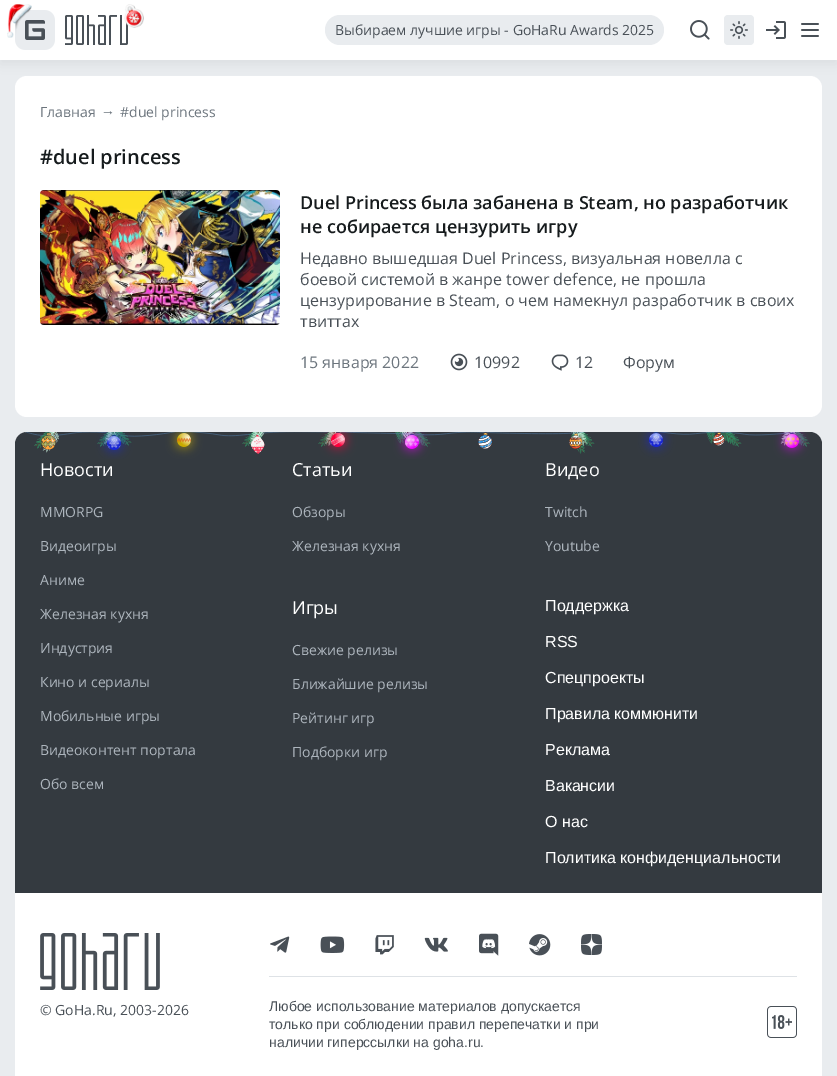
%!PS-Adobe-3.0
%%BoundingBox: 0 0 837 1076
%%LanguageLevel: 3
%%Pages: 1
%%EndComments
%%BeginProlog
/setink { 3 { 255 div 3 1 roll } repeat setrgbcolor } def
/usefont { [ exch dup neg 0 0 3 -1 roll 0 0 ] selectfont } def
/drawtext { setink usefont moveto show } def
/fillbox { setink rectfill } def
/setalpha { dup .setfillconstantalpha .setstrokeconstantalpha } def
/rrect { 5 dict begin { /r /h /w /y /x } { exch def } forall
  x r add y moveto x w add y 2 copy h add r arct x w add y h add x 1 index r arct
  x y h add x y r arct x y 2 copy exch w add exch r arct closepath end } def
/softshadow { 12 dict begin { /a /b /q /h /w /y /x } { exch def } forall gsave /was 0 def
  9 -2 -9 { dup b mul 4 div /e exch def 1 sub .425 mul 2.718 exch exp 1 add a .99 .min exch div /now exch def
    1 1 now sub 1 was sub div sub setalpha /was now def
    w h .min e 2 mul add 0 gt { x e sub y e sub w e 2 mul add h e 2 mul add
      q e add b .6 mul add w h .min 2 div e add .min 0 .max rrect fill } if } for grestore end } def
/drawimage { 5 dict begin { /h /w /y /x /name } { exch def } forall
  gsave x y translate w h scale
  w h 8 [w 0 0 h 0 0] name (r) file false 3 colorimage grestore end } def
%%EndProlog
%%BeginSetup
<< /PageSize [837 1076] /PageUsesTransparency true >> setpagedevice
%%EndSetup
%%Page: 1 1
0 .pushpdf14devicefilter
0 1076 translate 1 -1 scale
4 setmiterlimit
0 0 837 1076 233 236 239 fillbox
255 255 255 setink
15 76 807 341 12 rrect fill
0 0 0 setink
0 4 837 60 0 6 0.05 softshadow
0 0 837 60 255 255 255 fillbox
(assets/img3.rgb) 15 10 40 40 drawimage
(assets/img1.rgb) 7 4 25 34 drawimage
(assets/img4.rgb) 65 15 63 30 drawimage
(assets/img2.rgb) 124 4 20 24 drawimage
233 236 239 setink
325 15 339 30 15 rrect fill
(Выбираем лучшие игры - GoHaRu Awards 2025) 335 35 /OpenSans-Regular 14 73 80 87 drawtext
(assets/img5.rgb) 690 20 20 20 drawimage
233 236 239 setink
724 15 30 30 4 rrect fill
(assets/img6.rgb) 730 21 18 18 drawimage
(assets/img7.rgb) 766 21 20 18 drawimage
(assets/img8.rgb) 801 23 18 14 drawimage
(Главная) 40 117 /OpenSans-Regular 14 108 117 125 drawtext
(→) 101 115 /LiberationSans-Regular 14 108 117 125 drawtext
(#duel princess) 120 117 /OpenSans-Regular 14 108 117 125 drawtext
(#duel princess) 40 164 /OpenSans-SemiBold 20 22 27 29 drawtext
(assets/img9.rgb) 40 190 240 135 drawimage
(Duel Princess была забанена в Steam, но разработчик) 300 209 /OpenSans-SemiBold 18 22 27 29 drawtext
(не собирается цензурить игру) 300 233 /OpenSans-SemiBold 18 22 27 29 drawtext
(Недавно вышедшая Duel Princess, визуальная новелла с) 300 264 /OpenSans-Regular 16 73 80 87 drawtext
(боевой системой в жанре tower defenсe, не прошла) 300 285 /OpenSans-Regular 16 73 80 87 drawtext
(цензурирование в Steam, о чем намекнул разработчик в своих) 300 306 /OpenSans-Regular 16 73 80 87 drawtext
(твиттах) 300 327 /OpenSans-Regular 16 73 80 87 drawtext
(15 января 2022) 300 368 /OpenSans-Regular 16 108 117 125 drawtext
(assets/img10.rgb) 450 353 18 18 drawimage
(10992) 474 368 /OpenSans-Regular 16 73 80 87 drawtext
(assets/img11.rgb) 551 354 18 17 drawimage
(12) 575 368 /OpenSans-Regular 16 73 80 87 drawtext
(Форум) 623 368 /OpenSans-Regular 16 73 80 87 drawtext
52 58 64 setink
27 432 moveto 810 432 lineto 816.5 432 822 437.5 822 444 curveto 822 893 lineto 15 893 lineto 15 444 lineto 15 437.5 20.5 432 27 432 curveto closepath fill
(assets/img12.rgb) 25 432 785 27 drawimage
(Новости) 40 476 /OpenSans-Regular 18 255 255 255 drawtext
(MMORPG) 40 517 /OpenSans-Regular 14 173 181 189 drawtext
(Видеоигры) 40 551 /OpenSans-Regular 14 173 181 189 drawtext
(Аниме) 40 585 /OpenSans-Regular 14 173 181 189 drawtext
(Железная кухня) 40 619 /OpenSans-Regular 14 173 181 189 drawtext
(Индустрия) 40 653 /OpenSans-Regular 14 173 181 189 drawtext
(Кино и сериалы) 40 687 /OpenSans-Regular 14 173 181 189 drawtext
(Мобильные игры) 40 721 /OpenSans-Regular 14 173 181 189 drawtext
(Видеоконтент портала) 40 755 /OpenSans-Regular 14 173 181 189 drawtext
(Обо всем) 40 789 /OpenSans-Regular 14 173 181 189 drawtext
(Статьи) 292 476 /OpenSans-Regular 18 255 255 255 drawtext
(Обзоры) 292 517 /OpenSans-Regular 14 173 181 189 drawtext
(Железная кухня) 292 551 /OpenSans-Regular 14 173 181 189 drawtext
(Видео) 545 476 /OpenSans-Regular 18 255 255 255 drawtext
(Twitch) 545 517 /OpenSans-Regular 14 173 181 189 drawtext
(Youtube) 545 551 /OpenSans-Regular 14 173 181 189 drawtext
(Игры) 292 614 /OpenSans-Regular 18 255 255 255 drawtext
(Свежие релизы) 292 655 /OpenSans-Regular 14 173 181 189 drawtext
(Ближайшие релизы) 292 689 /OpenSans-Regular 14 173 181 189 drawtext
(Рейтинг игр) 292 723 /OpenSans-Regular 14 173 181 189 drawtext
(Подборки игр) 292 757 /OpenSans-Regular 14 173 181 189 drawtext
(Поддержка) 545 611 /LiberationSans-Regular 16 255 255 255 drawtext
(RSS) 545 647 /LiberationSans-Regular 16 255 255 255 drawtext
(Спецпроекты) 545 683 /LiberationSans-Regular 16 255 255 255 drawtext
(Правила коммюнити) 545 719 /LiberationSans-Regular 16 255 255 255 drawtext
(Реклама) 545 755 /LiberationSans-Regular 16 255 255 255 drawtext
(Вакансии) 545 791 /LiberationSans-Regular 16 255 255 255 drawtext
(О нас) 545 827 /LiberationSans-Regular 16 255 255 255 drawtext
(Политика конфиденциальности) 545 863 /LiberationSans-Regular 16 255 255 255 drawtext
15 893 807 183 255 255 255 fillbox
(assets/img13.rgb) 40 933 120 57 drawimage
(© GoHa.Ru, 2003-2026) 40 1015 /OpenSans-Regular 14 73 80 87 drawtext
(assets/img14.rgb) 270 936 20 17 drawimage
(assets/img15.rgb) 320 936 25 17 drawimage
(assets/img16.rgb) 375 935 19 20 drawimage
(assets/img17.rgb) 424 937 24 15 drawimage
(assets/img18.rgb) 479 933 20 23 drawimage
(assets/img19.rgb) 529 934 22 22 drawimage
(assets/img20.rgb) 581 934 21 21 drawimage
269 976 528 1 222 226 230 fillbox
(Любое использование материалов допускается) 269 1011 /LiberationSans-Regular 14 73 80 87 drawtext
(только при соблюдении правил перепечатки и при) 269 1029 /LiberationSans-Regular 14 73 80 87 drawtext
(наличии гиперссылки на goha.ru.) 269 1047 /LiberationSans-Regular 14 73 80 87 drawtext
(assets/img21.rgb) 767 1006 30 32 drawimage
.poppdf14devicefilter showpage
%%EOF
